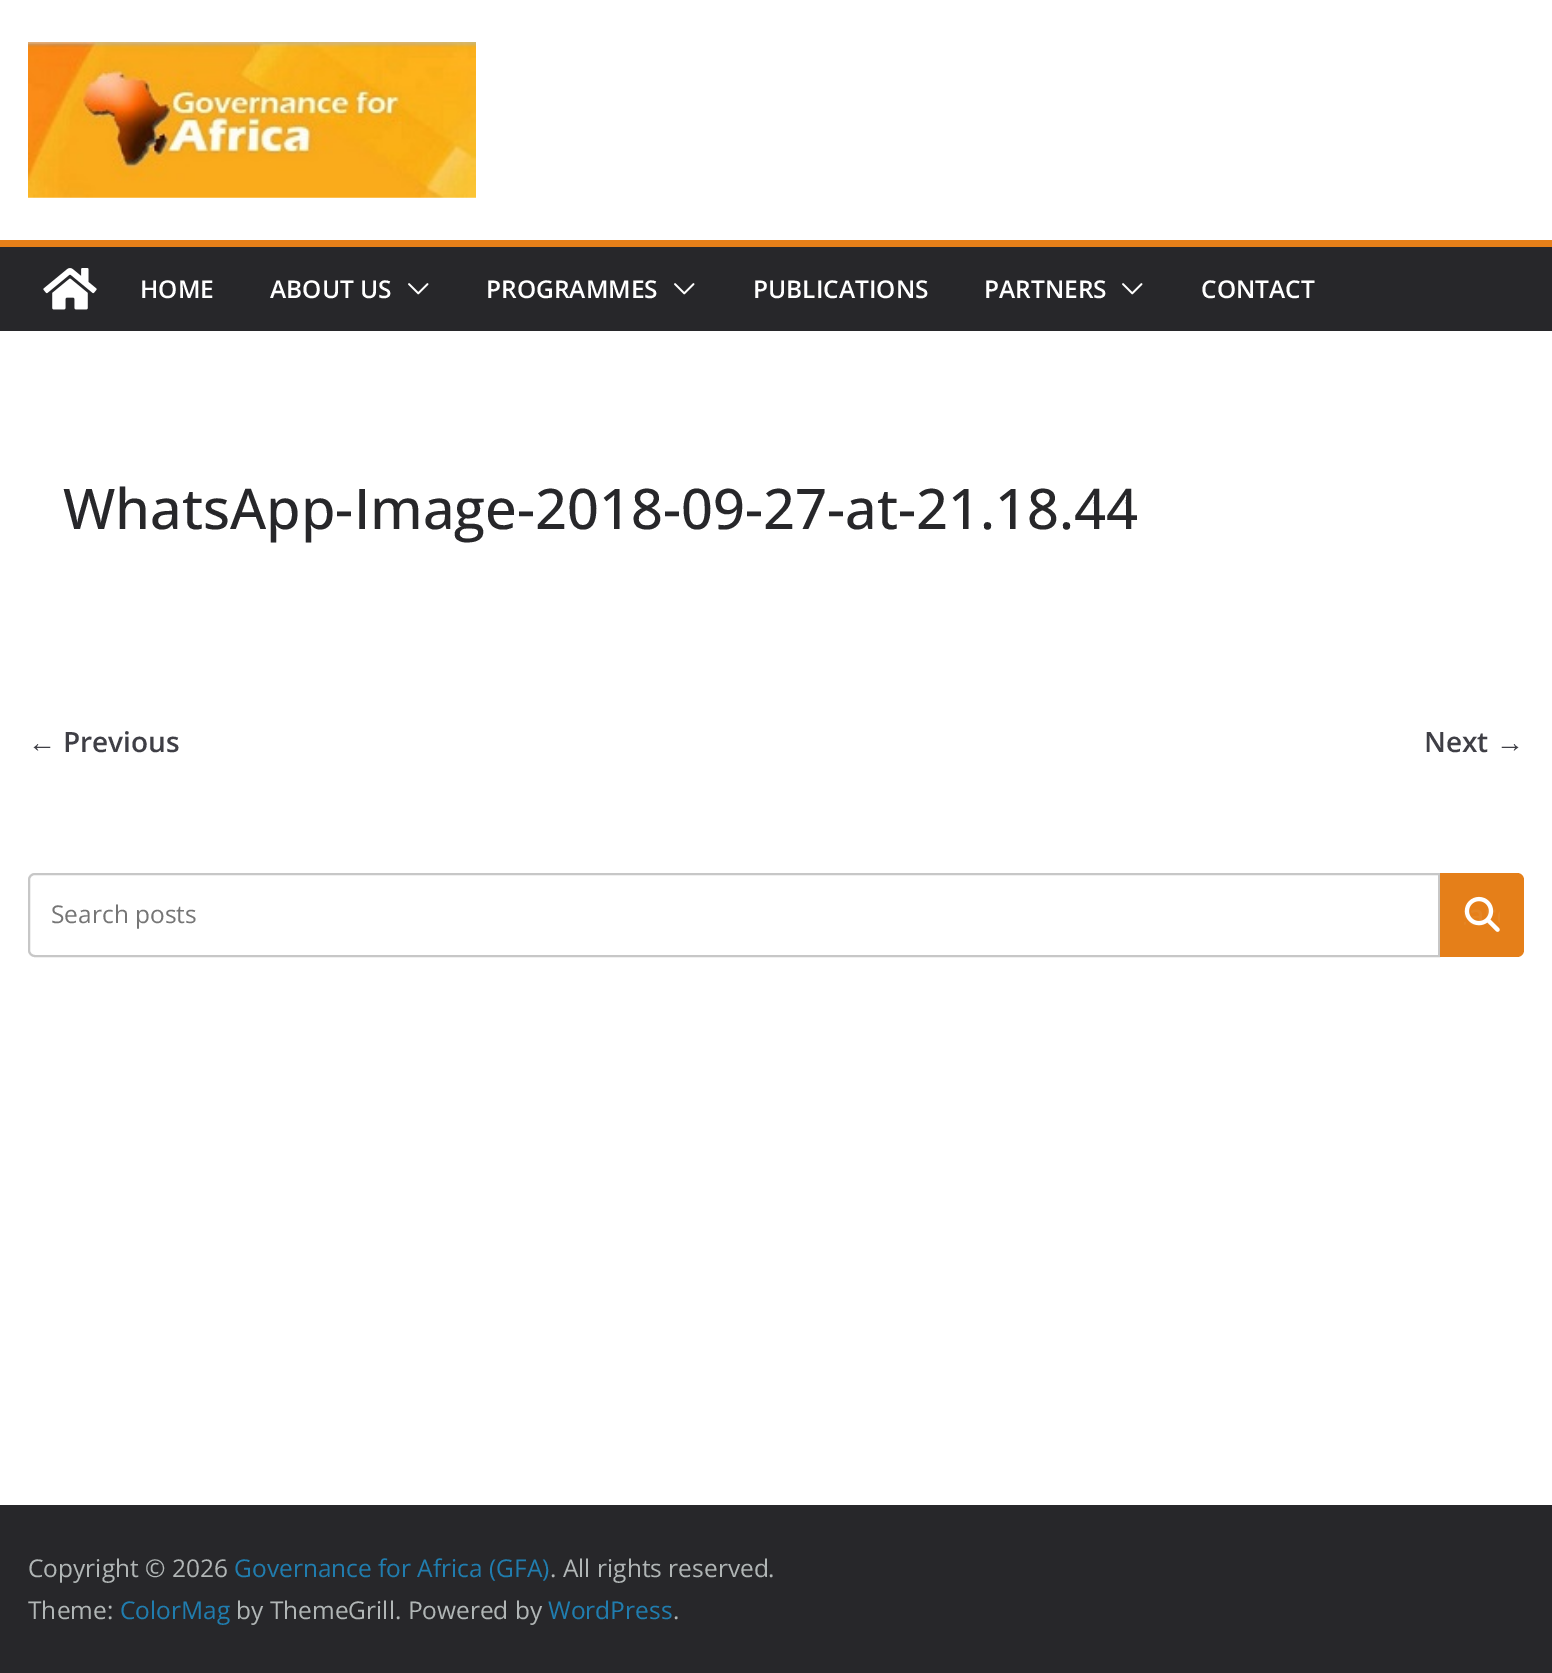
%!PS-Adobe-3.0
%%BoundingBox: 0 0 1552 1673
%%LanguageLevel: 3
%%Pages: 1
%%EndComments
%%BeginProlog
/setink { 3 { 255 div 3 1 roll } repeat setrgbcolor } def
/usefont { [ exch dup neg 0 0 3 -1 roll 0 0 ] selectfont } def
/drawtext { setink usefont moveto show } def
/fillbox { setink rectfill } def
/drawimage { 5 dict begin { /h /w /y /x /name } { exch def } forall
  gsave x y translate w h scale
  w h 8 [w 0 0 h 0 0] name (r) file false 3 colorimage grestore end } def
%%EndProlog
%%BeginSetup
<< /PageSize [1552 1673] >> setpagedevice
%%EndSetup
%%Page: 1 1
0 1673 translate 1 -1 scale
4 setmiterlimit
0 0 1552 1673 255 255 255 fillbox
(assets/img1.rgb) 28 42 448 156 drawimage
0 247 1552 84 39 39 42 fillbox
0 240 1552 7 229 127 25 fillbox
(assets/img2.rgb) 43 268 54 42 drawimage
(HOME) 140 298 /OpenSans-SemiBold 24.5 255 255 255 drawtext
(ABOUT US) 270 298 /OpenSans-SemiBold 24.5 255 255 255 drawtext
(assets/img3.rgb) 408 283 21 12 drawimage
(PROGRAMMES) 486 298 /OpenSans-SemiBold 24.5 255 255 255 drawtext
(assets/img3.rgb) 674 283 21 12 drawimage
(PUBLICATIONS) 753 298 /OpenSans-SemiBold 24.5 255 255 255 drawtext
(PARTNERS) 984 298 /OpenSans-SemiBold 24.5 255 255 255 drawtext
(assets/img3.rgb) 1122 283 21 12 drawimage
(CONTACT) 1201 298 /OpenSans-SemiBold 24.5 255 255 255 drawtext
(WhatsApp-Image-2018-09-27-at-21.18.44) 63 529 /OpenSans-Medium 56 39 39 42 drawtext
(←) 28 752 /LiberationSerif-Bold 28 63 63 70 drawtext
(Previous) 63 752 /OpenSans-SemiBold 28 63 63 70 drawtext
(Next) 1424 752 /OpenSans-SemiBold 28 63 63 70 drawtext
(→) 1496 752 /LiberationSerif-Bold 28 63 63 70 drawtext
199 199 199 setink
2 setlinewidth
35 874 moveto 1439 874 lineto 1439 956 lineto 35 956 lineto 31.5 956 29 953.5 29 950 curveto 29 880 lineto 29 876.5 31.5 874 35 874 curveto closepath stroke
(Search posts) 51 923 /OpenSans-Regular 24.5 117 117 117 drawtext
229 127 25 setink
1440 873 moveto 1517 873 lineto 1521 873 1524 876 1524 880 curveto 1524 950 lineto 1524 954 1521 957 1517 957 curveto 1440 957 lineto closepath fill
(assets/img4.rgb) 1464 896 36 36 drawimage
0 1505 1552 168 39 39 42 fillbox
(Copyright © 2026) 28 1577 /OpenSans-Regular 24.5 177 182 182 drawtext
(Governance for Africa \(GFA\)) 234 1577 /OpenSans-Regular 24.5 32 125 175 drawtext
(. All rights reserved.) 550 1577 /OpenSans-Regular 24.5 177 182 182 drawtext
(Theme:) 28 1619 /OpenSans-Regular 24.5 177 182 182 drawtext
(ColorMag) 120 1619 /OpenSans-Regular 24.5 32 125 175 drawtext
(by ThemeGrill. Powered by) 236 1619 /OpenSans-Regular 24.5 177 182 182 drawtext
(WordPress) 548 1619 /OpenSans-Regular 24.5 32 125 175 drawtext
(.) 673 1619 /OpenSans-Regular 24.5 177 182 182 drawtext
showpage
%%EOF
